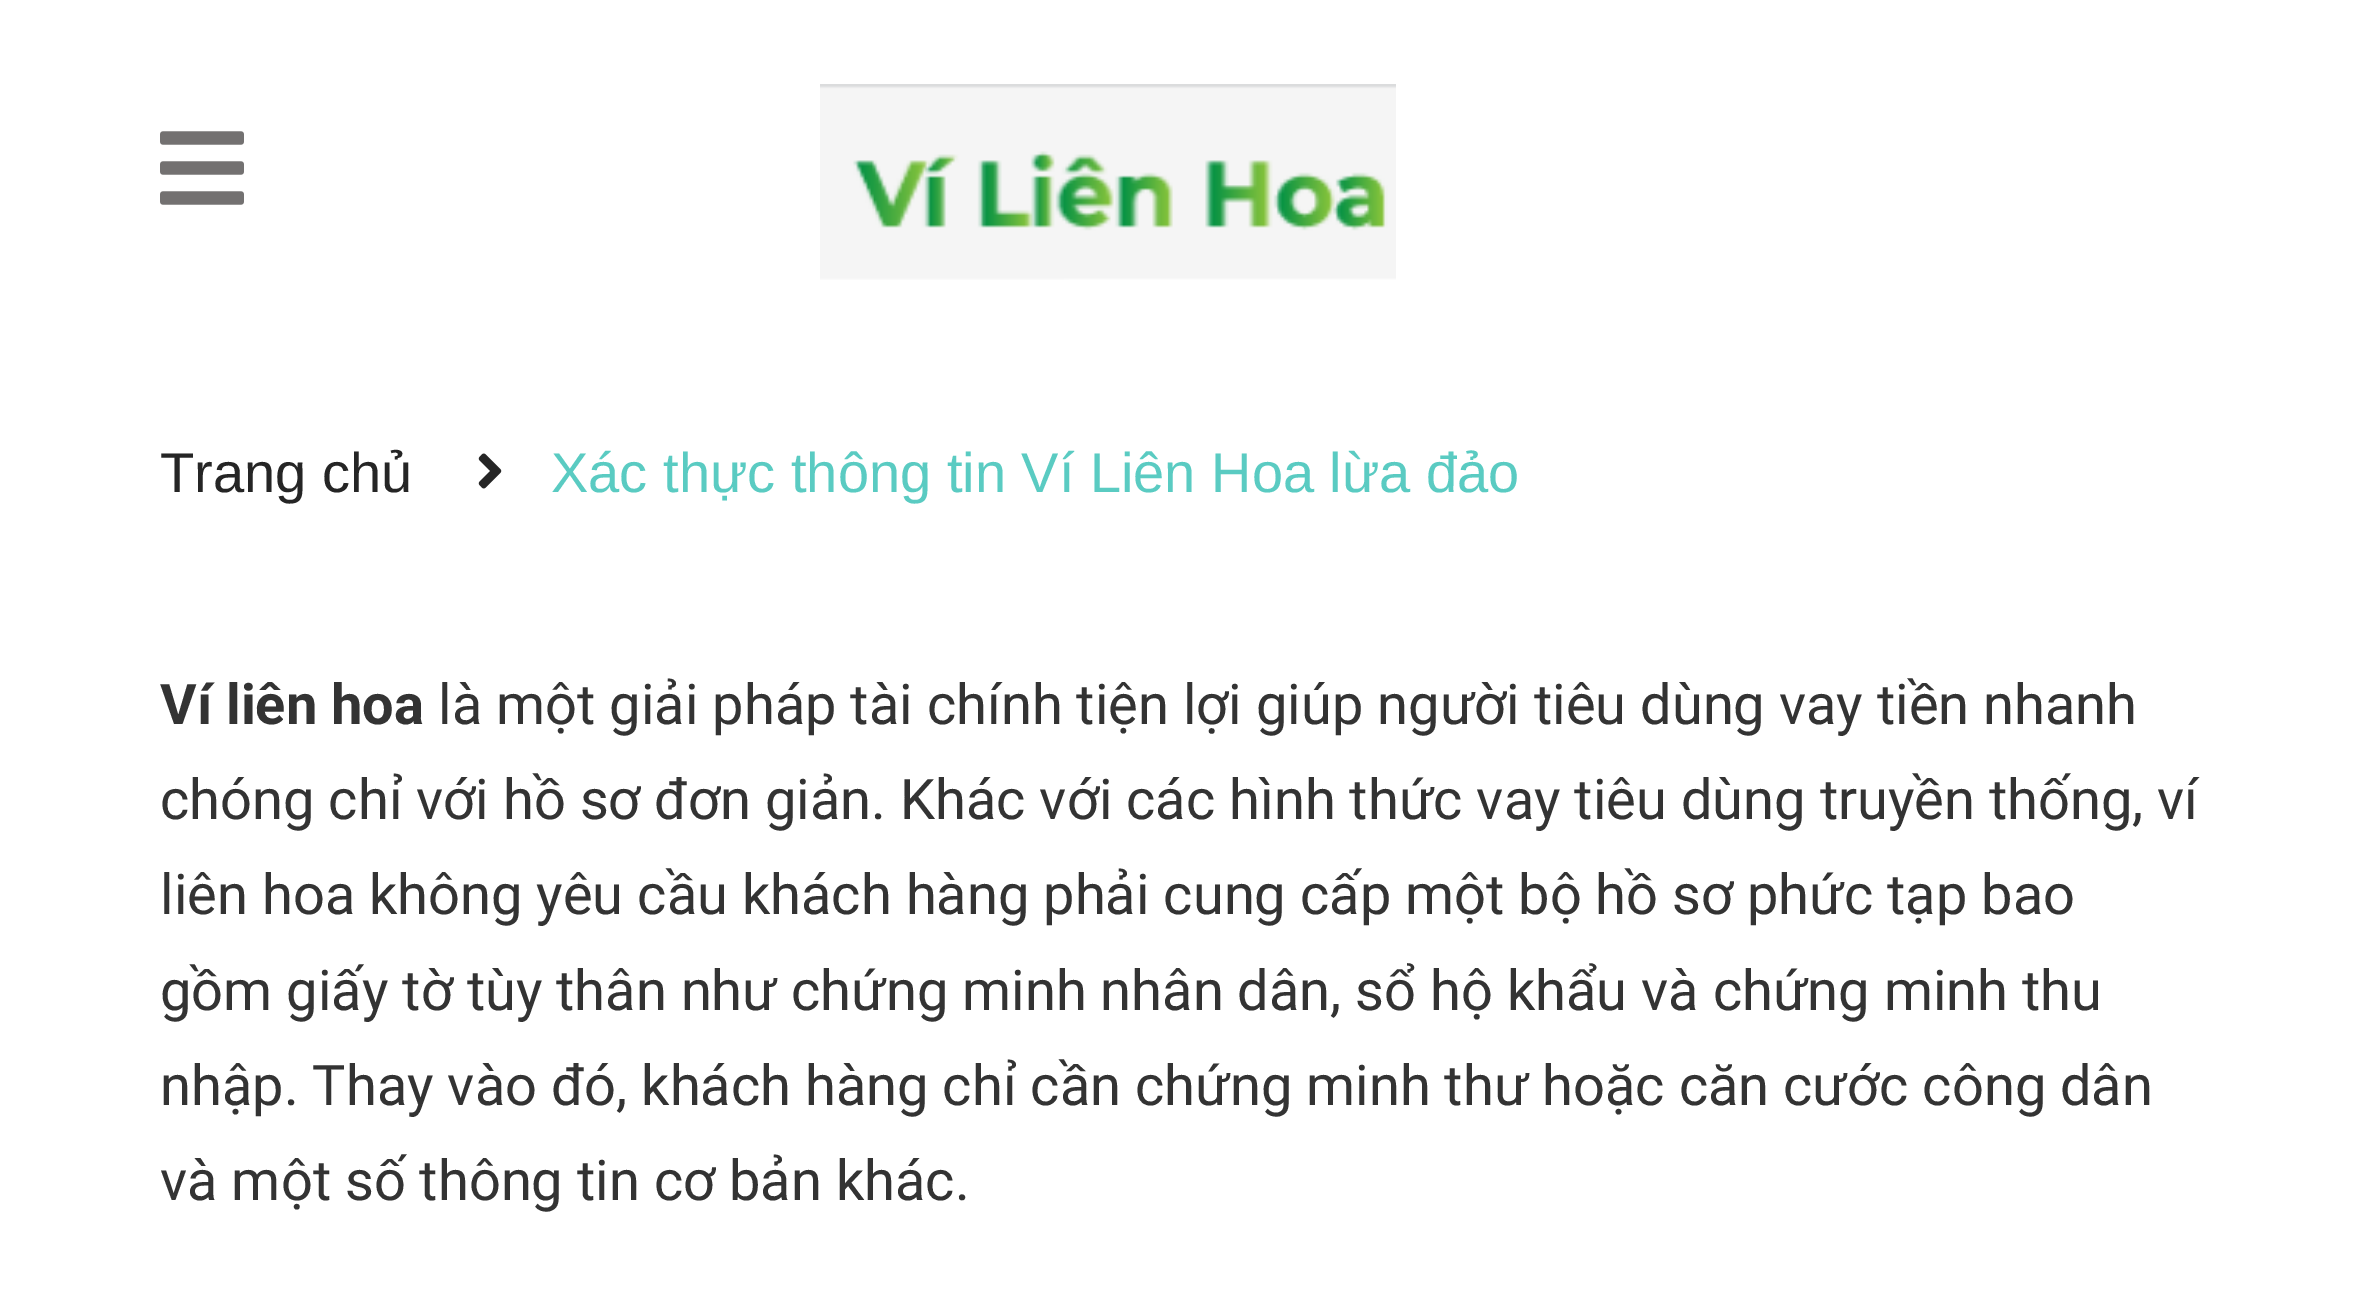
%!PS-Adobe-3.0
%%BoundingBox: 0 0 2357 1289
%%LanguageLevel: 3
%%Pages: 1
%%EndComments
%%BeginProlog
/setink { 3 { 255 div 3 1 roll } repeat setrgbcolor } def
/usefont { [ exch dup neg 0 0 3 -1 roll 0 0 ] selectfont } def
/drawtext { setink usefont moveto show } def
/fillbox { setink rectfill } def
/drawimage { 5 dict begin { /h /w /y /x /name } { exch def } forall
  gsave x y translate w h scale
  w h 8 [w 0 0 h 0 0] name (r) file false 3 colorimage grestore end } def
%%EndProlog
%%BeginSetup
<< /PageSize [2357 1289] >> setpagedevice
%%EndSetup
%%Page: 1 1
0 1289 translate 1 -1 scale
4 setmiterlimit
0 0 2357 1289 255 255 255 fillbox
(assets/img1.rgb) 160 131 84 74 drawimage
(assets/img2.rgb) 820 84 576 196 drawimage
(Trang chủ) 160 492 /LiberationSans-Regular 56 37 37 37 drawtext
(assets/img3.rgb) 478 453 24 36 drawimage
(Xác thực thông tin Ví Liên Hoa lừa đảo) 551 492 /LiberationSans-Regular 56 90 203 194 drawtext
(Ví liên hoa) 160 724 /Roboto-Bold 56 51 51 51 drawtext
(là một giải pháp tài chính tiện lợi giúp người tiêu dùng vay tiền nhanh) 438 724 /Roboto-Regular 56 51 51 51 drawtext
(chóng chỉ với hồ sơ đơn giản. Khác với các hình thức vay tiêu dùng truyền thống, ví) 160 819 /Roboto-Regular 56 51 51 51 drawtext
(liên hoa không yêu cầu khách hàng phải cung cấp một bộ hồ sơ phức tạp bao) 160 914 /Roboto-Regular 56 51 51 51 drawtext
(gồm giấy tờ tùy thân như chứng minh nhân dân, sổ hộ khẩu và chứng minh thu) 160 1010 /Roboto-Regular 56 51 51 51 drawtext
(nhập. Thay vào đó, khách hàng chỉ cần chứng minh thư hoặc căn cước công dân) 160 1105 /Roboto-Regular 56 51 51 51 drawtext
(và một số thông tin cơ bản khác.) 160 1200 /Roboto-Regular 56 51 51 51 drawtext
showpage
%%EOF
